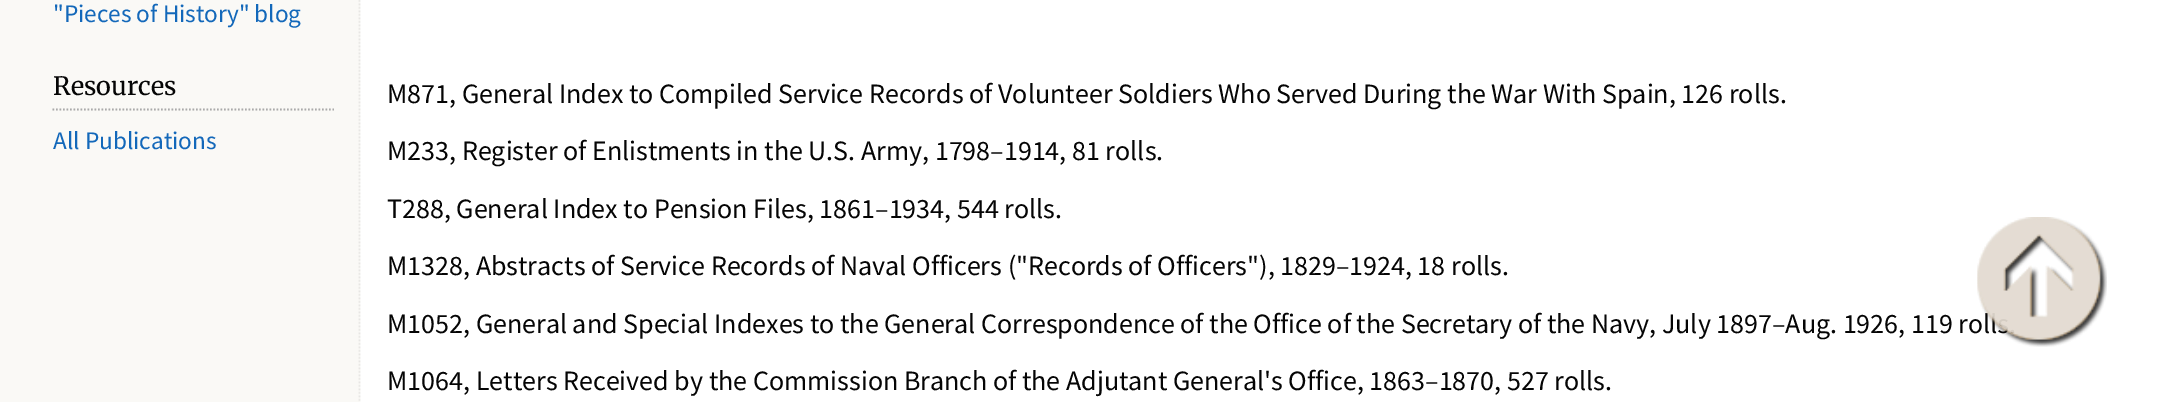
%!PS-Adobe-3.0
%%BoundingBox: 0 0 2162 402
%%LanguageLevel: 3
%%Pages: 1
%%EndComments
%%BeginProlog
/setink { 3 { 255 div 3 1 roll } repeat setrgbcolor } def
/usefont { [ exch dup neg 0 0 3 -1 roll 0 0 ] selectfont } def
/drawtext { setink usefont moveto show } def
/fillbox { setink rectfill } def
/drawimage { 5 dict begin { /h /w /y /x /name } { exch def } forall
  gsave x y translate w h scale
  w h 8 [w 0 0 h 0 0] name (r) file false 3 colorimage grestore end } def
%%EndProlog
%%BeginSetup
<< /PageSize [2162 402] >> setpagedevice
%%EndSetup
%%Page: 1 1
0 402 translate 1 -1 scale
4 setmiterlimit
0 0 2162 402 255 255 255 fillbox
(assets/img1.rgb) 0 0 361 402 drawimage
("Pieces of History" blog) 53 22 /SourceSansPro-Regular 25.25 19 104 186 drawtext
170 170 170 setink
1.8 setlinewidth
[1.75 1.75] 0 setdash
52.5 109.5 moveto 334 109.5 lineto stroke
(Resources) 53 95 /Merriweather-Light 25.25 5 5 5 drawtext
(All Publications) 53 149 /SourceSansPro-Regular 25.25 19 104 186 drawtext
(M871, General Index to Compiled Service Records of Volunteer Soldiers Who Served During the War With Spain, 126 rolls.) 387 103 /SourceSansPro-Regular 28 5 5 5 drawtext
(M233, Register of Enlistments in the U.S. Army, 1798–1914, 81 rolls.) 387 160 /SourceSansPro-Regular 28 5 5 5 drawtext
(T288, General Index to Pension Files, 1861–1934, 544 rolls.) 387 218 /SourceSansPro-Regular 28 5 5 5 drawtext
(M1328, Abstracts of Service Records of Naval Officers \("Records of Officers"\), 1829–1924, 18 rolls.) 387 275 /SourceSansPro-Regular 28 5 5 5 drawtext
(M1052, General and Special Indexes to the General Correspondence of the Office of the Secretary of the Navy, July 1897–Aug. 1926, 119 roll) 387 333 /SourceSansPro-Regular 28 5 5 5 drawtext
(M1064, Letters Received by the Commission Branch of the Adjutant General's Office, 1863–1870, 527 rolls.) 387 390 /SourceSansPro-Regular 28 5 5 5 drawtext
(assets/img2.rgb) 1977 217 130 130 drawimage
(assets/img3.rgb) 1977 217 130 130 drawimage
showpage
%%EOF
